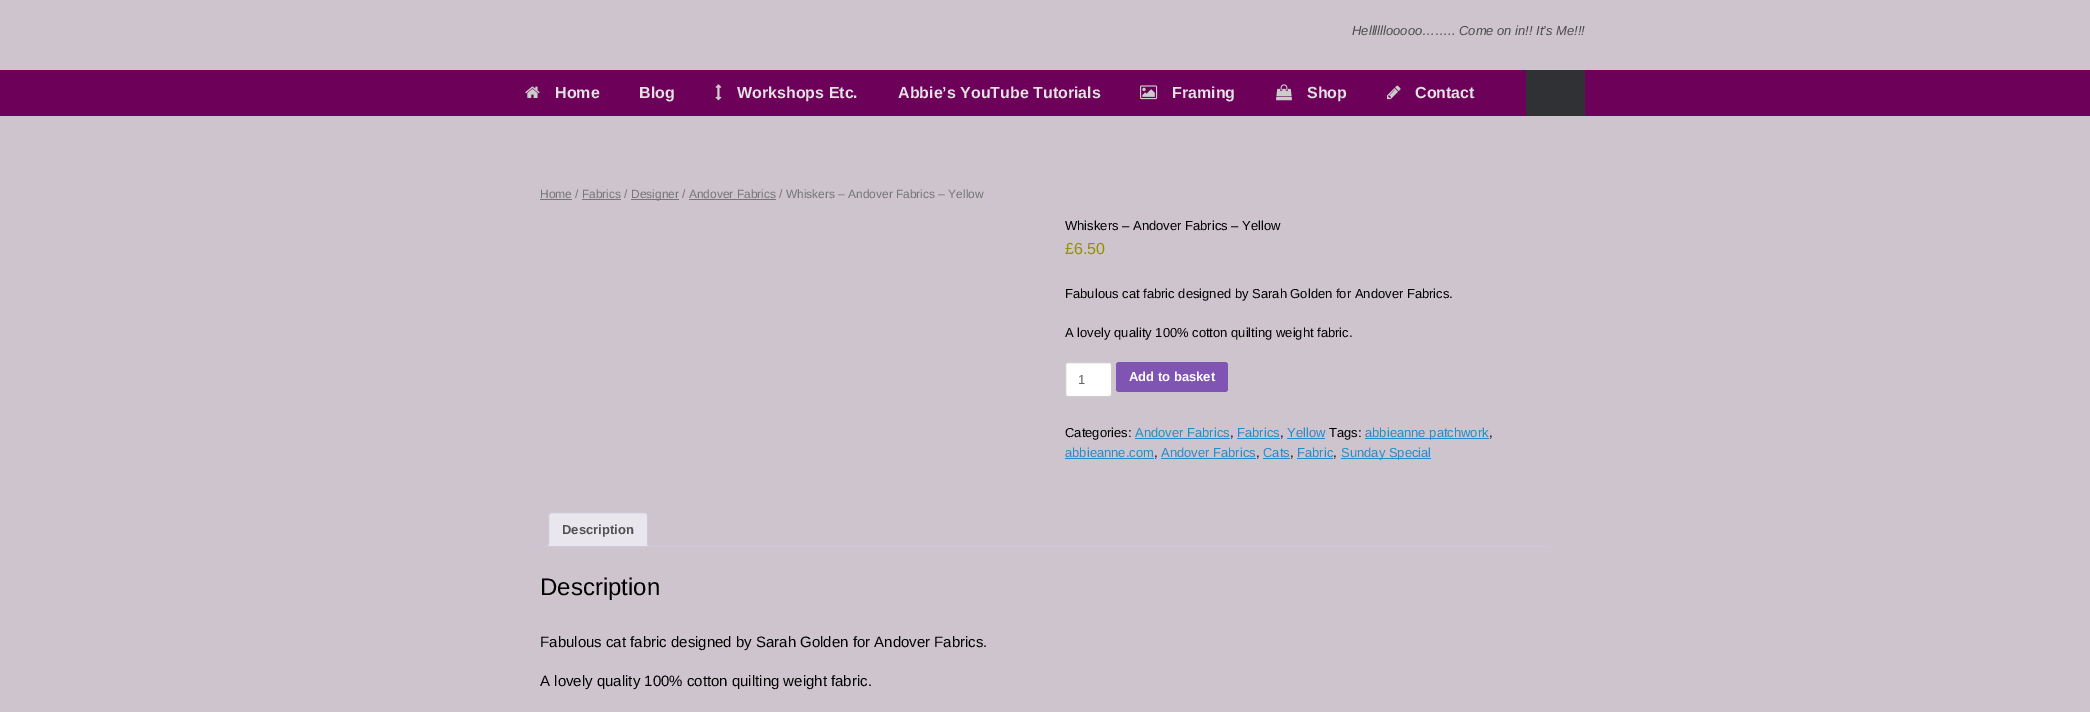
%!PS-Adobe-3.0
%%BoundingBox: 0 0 2090 712
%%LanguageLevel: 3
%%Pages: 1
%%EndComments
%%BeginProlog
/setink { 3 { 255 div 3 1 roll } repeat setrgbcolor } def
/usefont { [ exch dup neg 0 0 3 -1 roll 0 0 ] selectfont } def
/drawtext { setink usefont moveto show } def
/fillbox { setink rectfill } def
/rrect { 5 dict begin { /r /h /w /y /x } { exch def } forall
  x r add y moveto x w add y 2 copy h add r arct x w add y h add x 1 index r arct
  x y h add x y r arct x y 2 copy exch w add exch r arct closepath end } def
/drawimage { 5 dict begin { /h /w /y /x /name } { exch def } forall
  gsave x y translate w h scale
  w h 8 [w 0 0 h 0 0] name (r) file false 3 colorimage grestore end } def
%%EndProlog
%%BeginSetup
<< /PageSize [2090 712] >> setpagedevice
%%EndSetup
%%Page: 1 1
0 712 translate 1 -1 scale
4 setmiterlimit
0 0 2090 712 206 196 205 fillbox
(Hellllllooooo…….. Come on in!! It's Me!!!) 1352 35 /LiberationSans-Italic 13 75 75 75 drawtext
0 70 2090 46 109 0 89 fillbox
(assets/img1.rgb) 525 86 15 12 drawimage
(Home) 555 98 /LiberationSans-Bold 16 226 226 226 drawtext
(Blog) 639 98 /LiberationSans-Bold 16 226 226 226 drawtext
(assets/img2.rgb) 715 84 7 17 drawimage
(Workshops Etc.) 737 98 /LiberationSans-Bold 16 226 226 226 drawtext
(Abbie’s YouTube Tutorials) 898 98 /LiberationSans-Bold 16 226 226 226 drawtext
(assets/img3.rgb) 1140 85 18 15 drawimage
(Framing) 1172 98 /LiberationSans-Bold 16 226 226 226 drawtext
(assets/img4.rgb) 1276 84 16 17 drawimage
(Shop) 1307 98 /LiberationSans-Bold 16 226 226 226 drawtext
(assets/img5.rgb) 1387 85 14 15 drawimage
(Contact) 1415 98 /LiberationSans-Bold 16 226 226 226 drawtext
1526 70 59 46 48 49 52 fillbox
(Home / Fabrics /) 540 198 /LiberationSans-Regular 11.95 118 118 118 drawtext
540 199 32 1 118 118 118 fillbox
631 199 48 1 118 118 118 fillbox
(Designer / Andover Fabrics / Whiskers – Andover Fabrics – Yellow) 631 198 /LiberationSans-Regular 11.95 118 118 118 drawtext
582 199 39 1 118 118 118 fillbox
689 199 87 1 118 118 118 fillbox
(Whiskers – Andover Fabrics – Yellow) 1065 230 /LiberationSans-Regular 13 0 0 0 drawtext
(£6.50) 1065 254 /LiberationSans-Regular 16 149 142 9 drawtext
(Fabulous cat fabric designed by Sarah Golden for Andover Fabrics.) 1065 298 /LiberationSans-Regular 13 0 0 0 drawtext
(A lovely quality 100% cotton quilting weight fabric.) 1065 337 /LiberationSans-Regular 13 0 0 0 drawtext
255 255 255 setink
1065.5 362.5 46 34 2.5 rrect gsave fill grestore
204 204 204 setink
stroke
(1) 1078 384 /LiberationSans-Regular 13 102 102 102 drawtext
127 84 179 setink
1116 362 112 30 3 rrect fill
(Add to basket) 1129 381 /LiberationSans-Bold 13 255 255 255 drawtext
(Categories:) 1065 437 /LiberationSans-Regular 13 0 0 0 drawtext
(Andover Fabrics) 1135 437 /LiberationSans-Regular 13 36 140 200 drawtext
(,) 1230 437 /LiberationSans-Regular 13 0 0 0 drawtext
1135 438 95 1 36 140 200 fillbox
(Fabrics) 1237 437 /LiberationSans-Regular 13 36 140 200 drawtext
(,) 1280 437 /LiberationSans-Regular 13 0 0 0 drawtext
1237 438 43 1 36 140 200 fillbox
1287 438 38 1 36 140 200 fillbox
(Yellow) 1287 437 /LiberationSans-Regular 13 36 140 200 drawtext
(Tags:) 1329 437 /LiberationSans-Regular 13 0 0 0 drawtext
1365 438 124 1 36 140 200 fillbox
(abbieanne patchwork) 1365 437 /LiberationSans-Regular 13 36 140 200 drawtext
(,) 1489 437 /LiberationSans-Regular 13 0 0 0 drawtext
(abbieanne.com) 1065 457 /LiberationSans-Regular 13 36 140 200 drawtext
(,) 1154 457 /LiberationSans-Regular 13 0 0 0 drawtext
1065 458 89 1 36 140 200 fillbox
(Andover Fabrics) 1161 457 /LiberationSans-Regular 13 36 140 200 drawtext
(,) 1256 457 /LiberationSans-Regular 13 0 0 0 drawtext
1161 458 95 1 36 140 200 fillbox
(Cats) 1263 457 /LiberationSans-Regular 13 36 140 200 drawtext
(,) 1290 457 /LiberationSans-Regular 13 0 0 0 drawtext
1263 458 27 1 36 140 200 fillbox
(Fabric) 1297 457 /LiberationSans-Regular 13 36 140 200 drawtext
(,) 1333 457 /LiberationSans-Regular 13 0 0 0 drawtext
1297 458 36 1 36 140 200 fillbox
1341 458 90 1 36 140 200 fillbox
(Sunday Special) 1341 457 /LiberationSans-Regular 13 36 140 200 drawtext
233 230 237 setink
552 512.5 moveto 644 512.5 lineto 646 512.5 647.5 514 647.5 516 curveto 647.5 546.5 lineto 548.5 546.5 lineto 548.5 516 lineto 548.5 514 550 512.5 552 512.5 curveto closepath gsave fill grestore
207 200 216 setink
stroke
(Description) 562 534 /LiberationSans-Bold 13 81 81 81 drawtext
gsave
540 512 1010 35 rectclip
233 230 237 setink
546 547 moveto 546 549 lineto 549.5 549 551 547.5 551 544 curveto 549 544 lineto 548.5 545.5 547.5 546.5 546 547 curveto closepath fill
grestore
207 200 216 setink
544 542 moveto 549 542 lineto 549 545.5 547.5 547 544 547 curveto closepath 544 542 moveto 548 542 lineto 548 545 547 546 544 546 curveto closepath eofill
gsave
540 512 1010 35 rectclip
233 230 237 setink
645 544 moveto 645 547.5 646.5 549 650 549 curveto 650 547 lineto 648.5 546.5 647.5 545.5 647 544 curveto closepath fill
grestore
647 542 moveto 652 542 lineto 652 547 lineto 649.5 547 647 546 647 543 curveto closepath 648 542 moveto 652 542 lineto 652 546 lineto 650 546 648 545.5 648 543 curveto closepath eofill
540 546 1010 1 207 200 216 fillbox
(Description) 540 595 /LiberationSans-Regular 24 0 0 0 drawtext
(Fabulous cat fabric designed by Sarah Golden for Andover Fabrics.) 540 647 /LiberationSans-Regular 15 0 0 0 drawtext
(A lovely quality 100% cotton quilting weight fabric.) 540 686 /LiberationSans-Regular 15 0 0 0 drawtext
showpage
%%EOF
